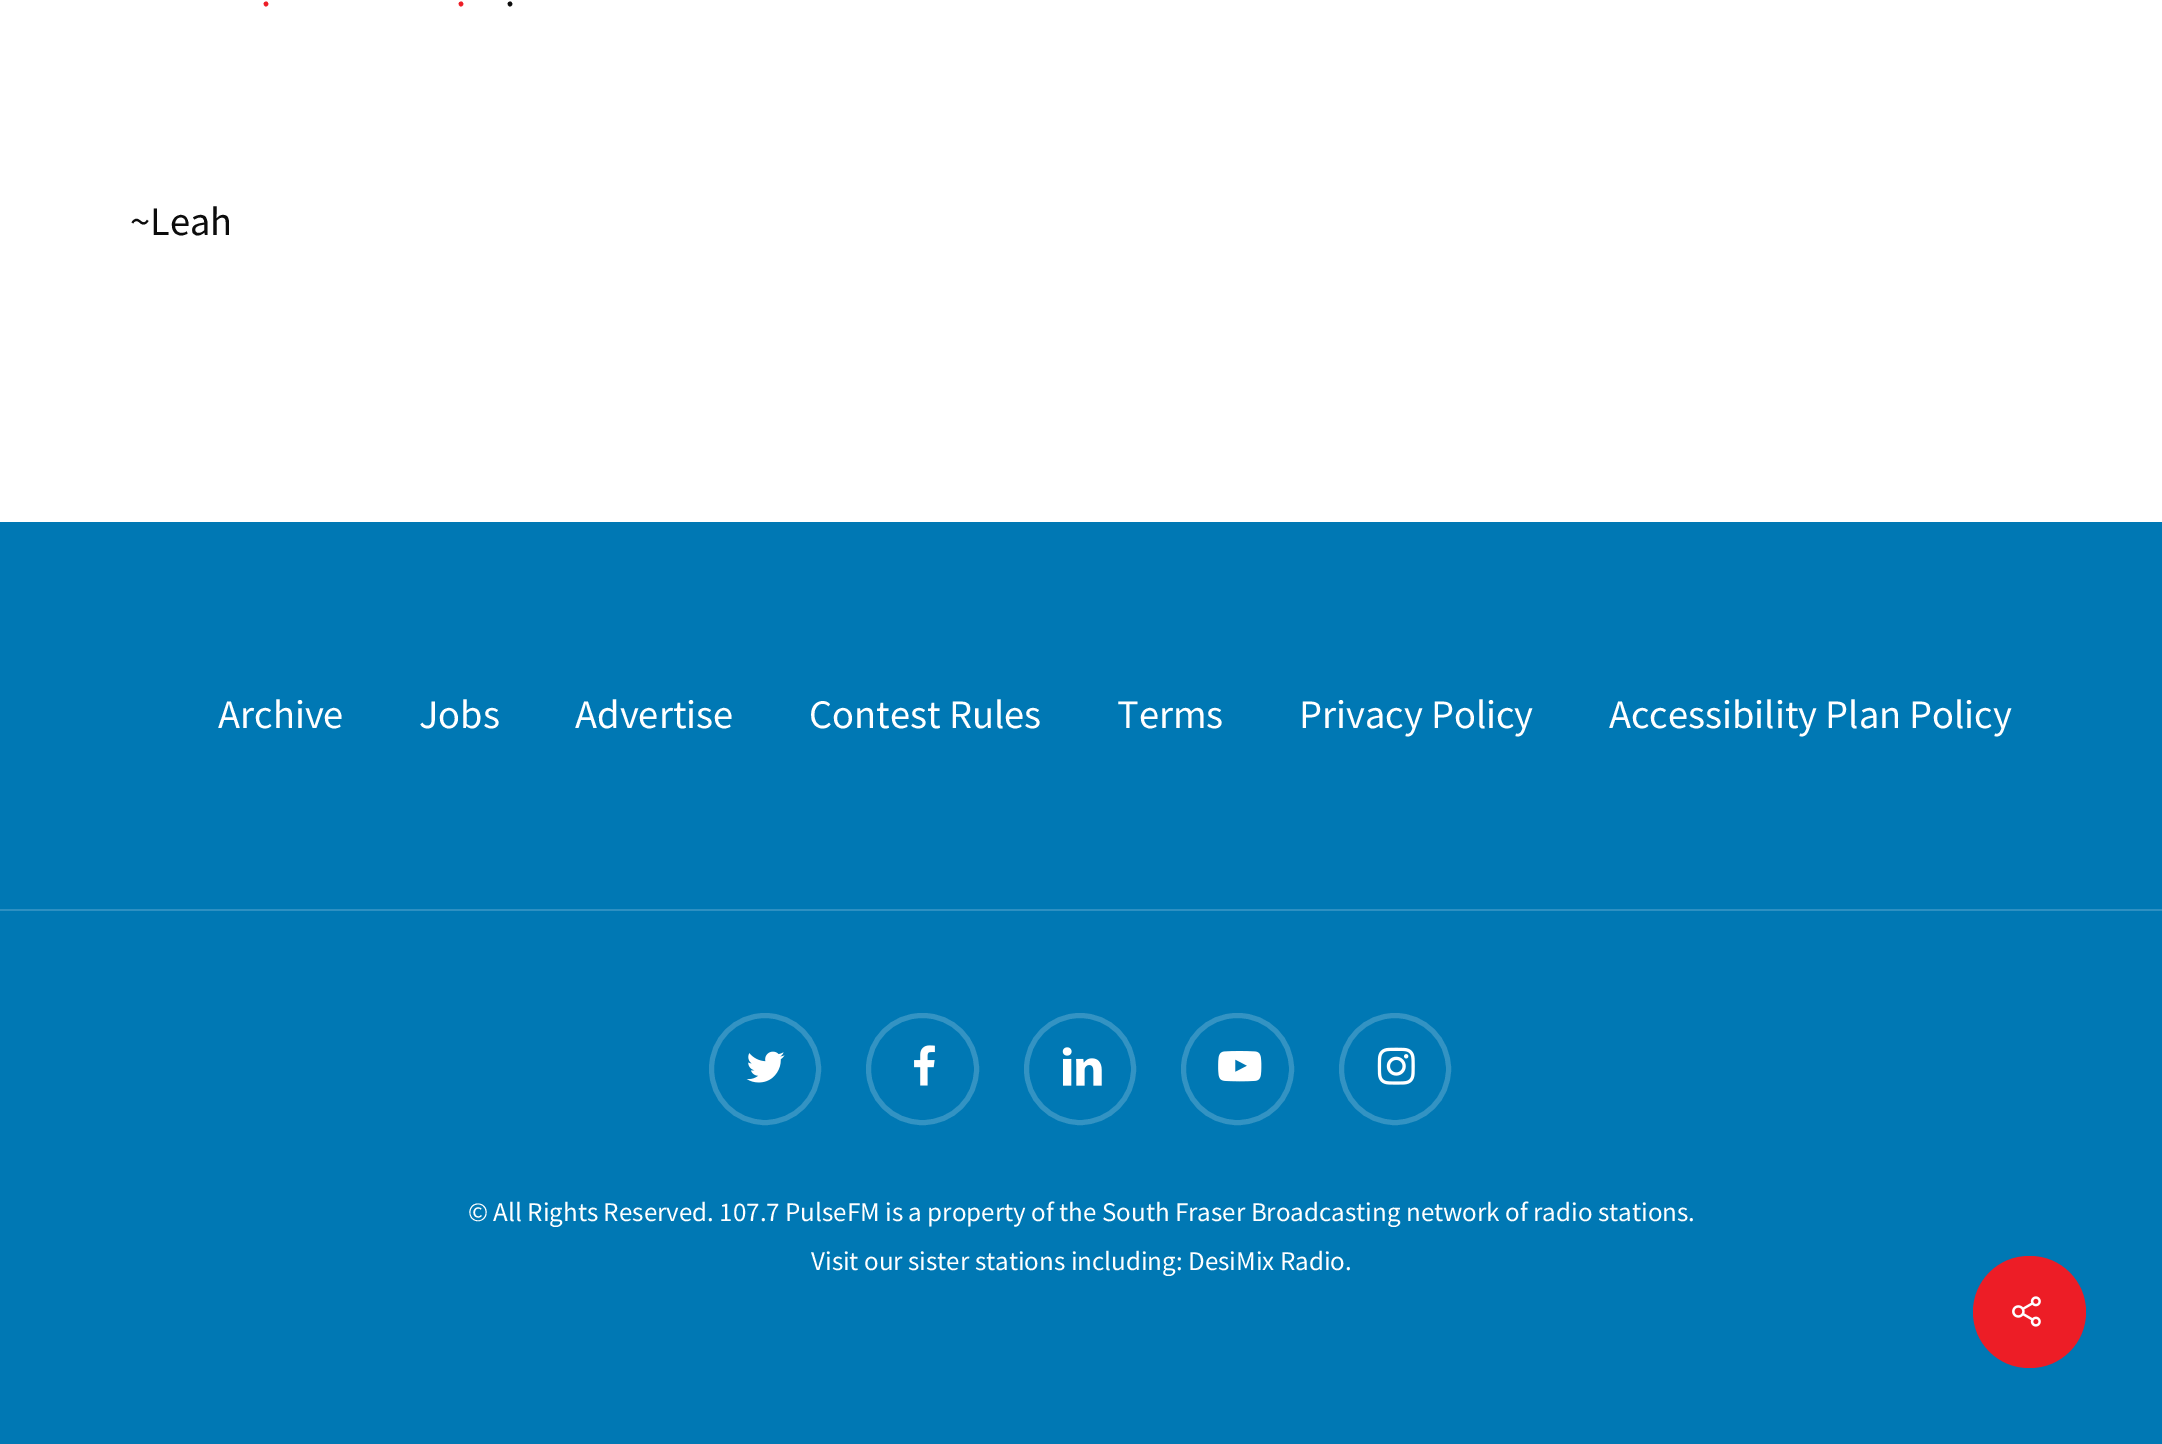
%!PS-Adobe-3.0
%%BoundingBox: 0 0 2162 1444
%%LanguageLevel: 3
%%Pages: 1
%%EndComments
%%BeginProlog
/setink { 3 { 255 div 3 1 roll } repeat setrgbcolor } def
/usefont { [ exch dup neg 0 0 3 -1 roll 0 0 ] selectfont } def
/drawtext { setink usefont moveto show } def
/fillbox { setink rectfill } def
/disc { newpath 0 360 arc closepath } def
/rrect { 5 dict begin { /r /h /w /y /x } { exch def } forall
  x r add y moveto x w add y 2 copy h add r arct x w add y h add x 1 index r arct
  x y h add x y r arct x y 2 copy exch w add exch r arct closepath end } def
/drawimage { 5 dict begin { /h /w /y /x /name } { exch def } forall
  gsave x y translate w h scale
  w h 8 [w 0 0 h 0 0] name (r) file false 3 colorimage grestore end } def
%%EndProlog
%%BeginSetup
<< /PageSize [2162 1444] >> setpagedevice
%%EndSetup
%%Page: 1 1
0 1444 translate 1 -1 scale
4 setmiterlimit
0 0 2162 1444 255 255 255 fillbox
(.) 261 6 /SourceSansPro-Regular 40.5 237 29 38 drawtext
(.) 456 6 /SourceSansPro-Regular 40.5 237 29 38 drawtext
(.) 505 6 /SourceSansPro-Regular 40.5 12 12 12 drawtext
(~Leah) 130 235 /SourceSansPro-Regular 40.5 12 12 12 drawtext
0 522 2162 922 0 120 180 fillbox
(Archive) 218 728 /SourceSansPro-Regular 40.5 255 255 255 drawtext
(Jobs) 419 728 /SourceSansPro-Regular 40.5 255 255 255 drawtext
(Advertise) 575 728 /SourceSansPro-Regular 40.5 255 255 255 drawtext
(Contest Rules) 809 728 /SourceSansPro-Regular 40.5 255 255 255 drawtext
(Terms) 1117 728 /SourceSansPro-Regular 40.5 255 255 255 drawtext
(Privacy Policy) 1299 728 /SourceSansPro-Regular 40.5 255 255 255 drawtext
(Accessibility Plan Policy) 1609 728 /SourceSansPro-Regular 40.5 255 255 255 drawtext
0 909 2162 2 46 144 194 fillbox
(assets/img1.rgb) 746 1051 39 32 drawimage
51 147 195 setink
5 setlinewidth
765 1069 53.5 disc stroke
(assets/img2.rgb) 914 1045 21 41 drawimage
868.5 1015.5 108 107 53.5 rrect stroke
(assets/img3.rgb) 1062 1047 40 39 drawimage
1080 1069 53.5 disc stroke
(assets/img4.rgb) 1218 1051 44 31 drawimage
1183.5 1015.5 108 107 53.5 rrect stroke
(assets/img5.rgb) 1377 1047 38 38 drawimage
1395 1069 53.5 disc stroke
(© All Rights Reserved. 107.7 PulseFM is a property of the South Fraser Broadcasting network of radio stations.) 468 1221 /SourceSansPro-Regular 27 255 255 255 drawtext
(Visit our sister stations including: DesiMix Radio.) 811 1270 /SourceSansPro-Regular 27 255 255 255 drawtext
237 29 38 setink
1973 1256 113 112 56 rrect fill
(assets/img6.rgb) 2012 1296 29 31 drawimage
showpage
%%EOF
